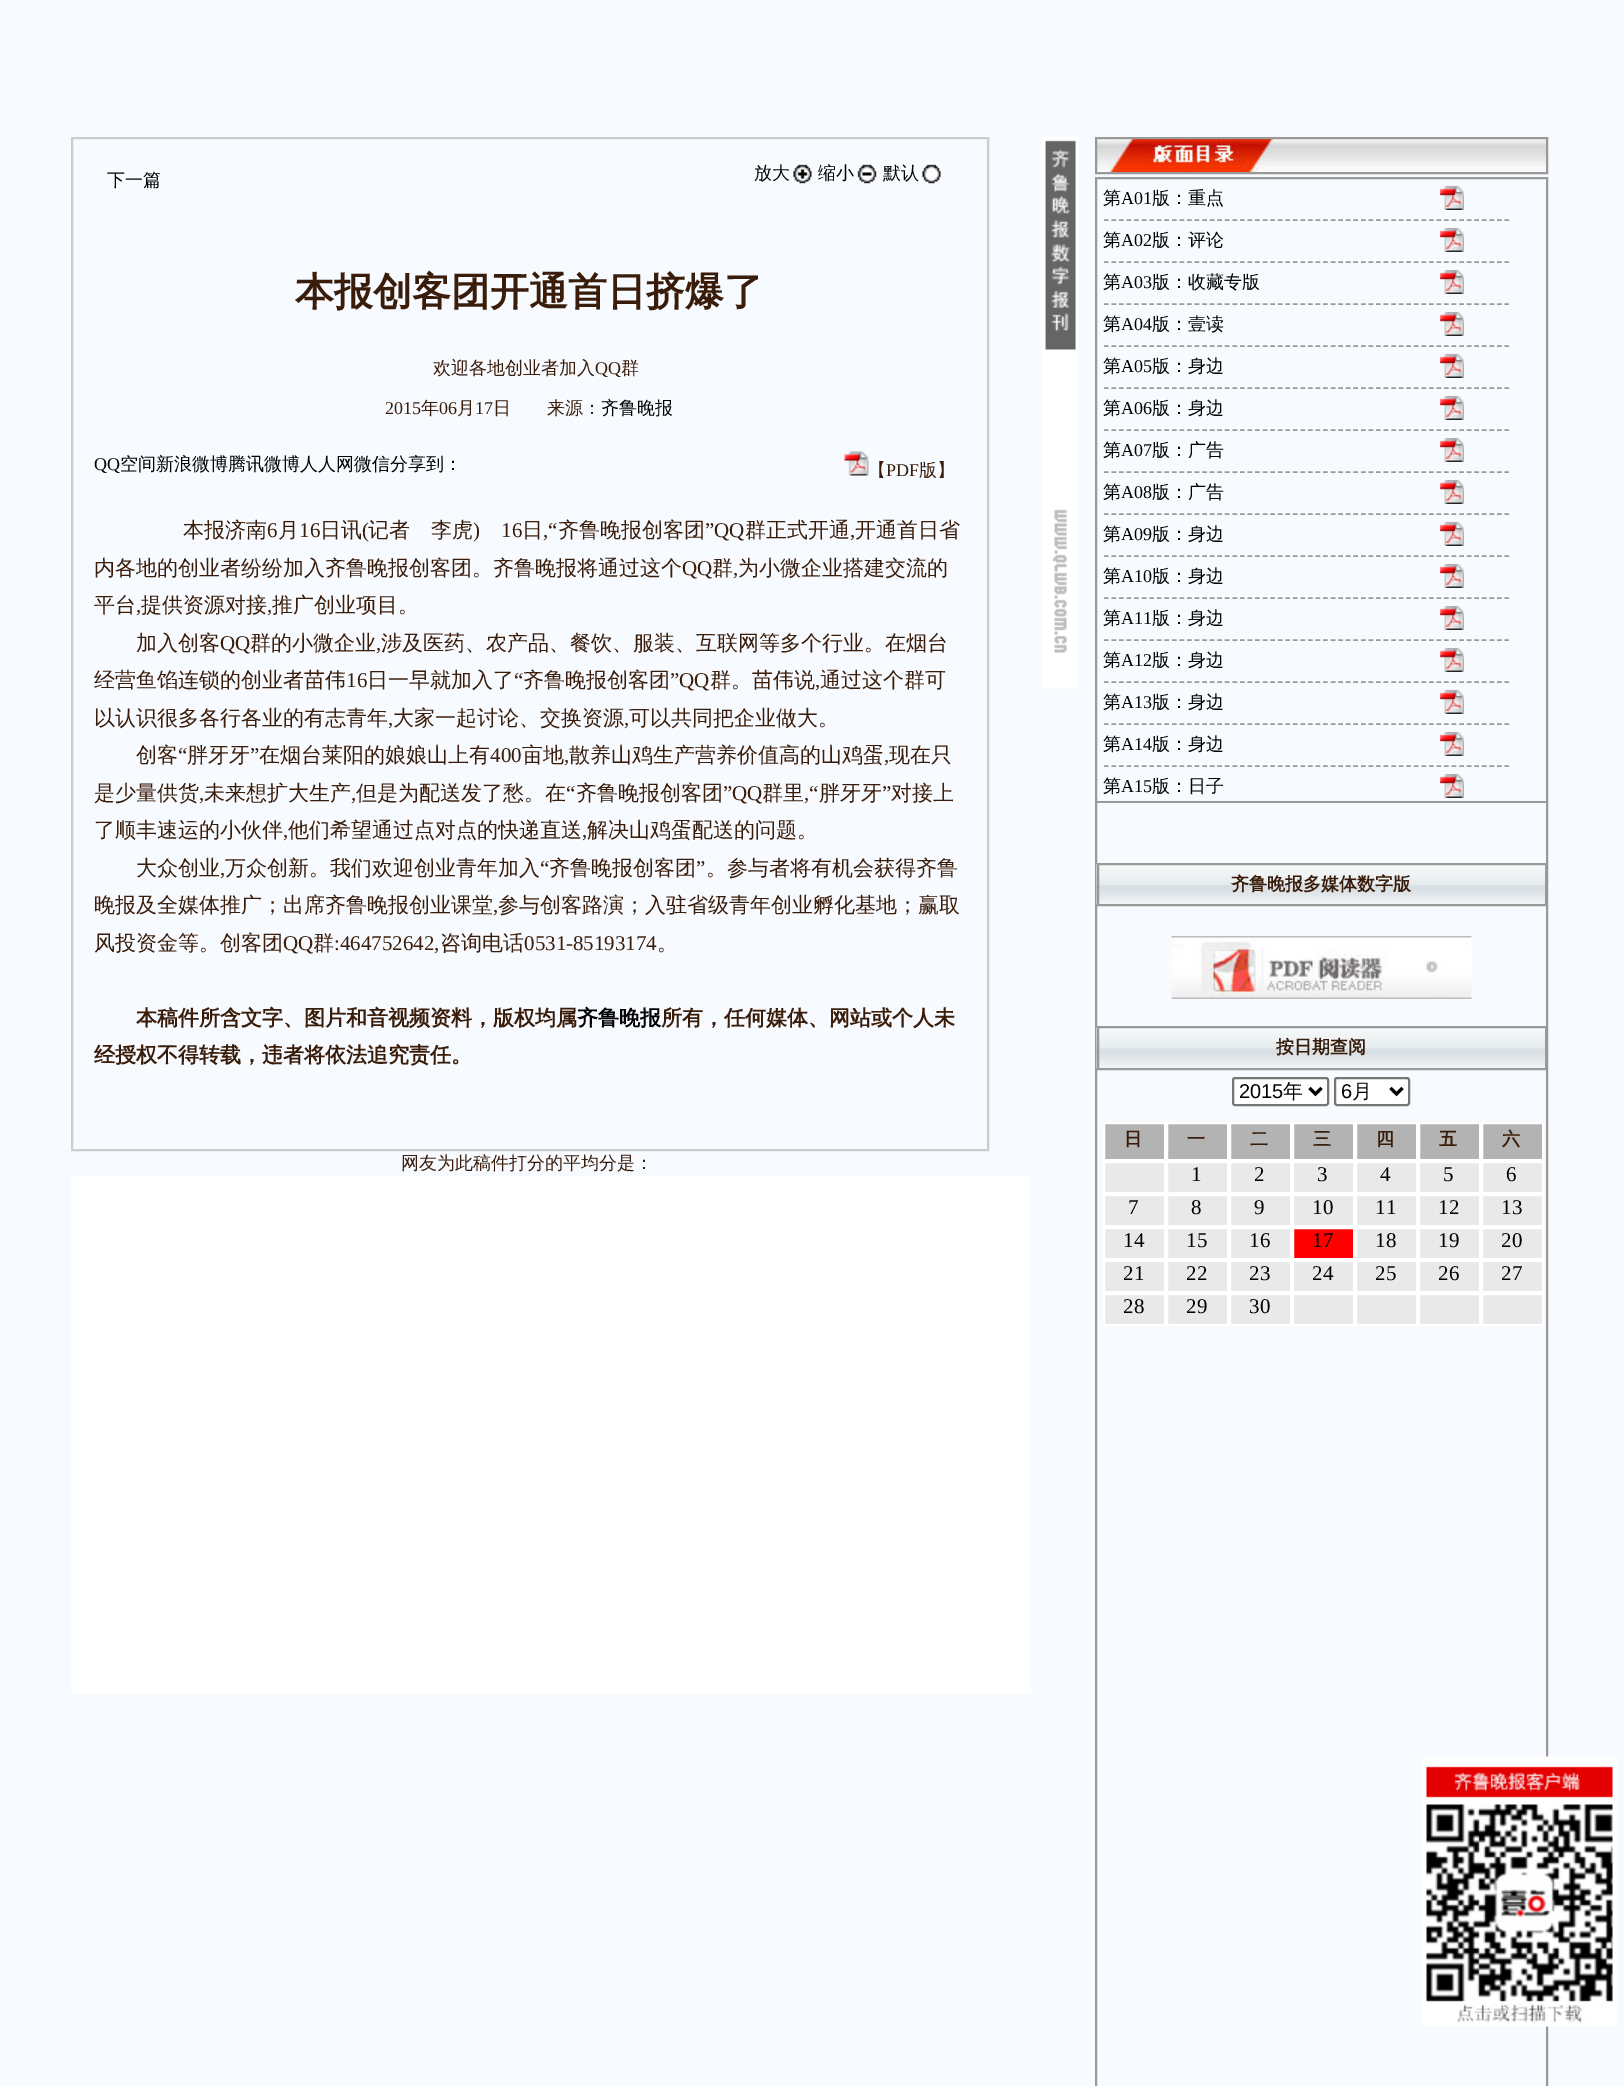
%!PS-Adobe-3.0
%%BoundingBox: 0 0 1624 2086
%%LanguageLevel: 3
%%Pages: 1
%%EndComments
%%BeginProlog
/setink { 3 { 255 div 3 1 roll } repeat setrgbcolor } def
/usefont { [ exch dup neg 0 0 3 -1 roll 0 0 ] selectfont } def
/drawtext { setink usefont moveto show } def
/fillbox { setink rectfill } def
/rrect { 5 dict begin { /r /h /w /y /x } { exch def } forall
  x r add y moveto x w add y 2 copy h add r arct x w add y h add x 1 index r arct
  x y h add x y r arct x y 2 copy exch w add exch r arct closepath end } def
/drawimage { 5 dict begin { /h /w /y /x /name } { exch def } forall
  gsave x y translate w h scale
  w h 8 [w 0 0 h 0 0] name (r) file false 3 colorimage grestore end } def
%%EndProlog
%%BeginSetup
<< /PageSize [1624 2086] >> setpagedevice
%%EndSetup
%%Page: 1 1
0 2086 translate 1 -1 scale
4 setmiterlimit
0 0 1624 2086 247 250 255 fillbox
204 204 204 setink
2 setlinewidth
72 138 916 1012 rectstroke
(下一篇) 107 186 /WenQuanYiZenHei-Medium 18 0 0 0 drawtext
(放大) 754 179 /WenQuanYiZenHei-Medium 18 0 0 0 drawtext
(assets/img1.rgb) 793 164 19 20 drawimage
(缩小) 818 179 /WenQuanYiZenHei-Medium 18 0 0 0 drawtext
(assets/img2.rgb) 857 164 20 20 drawimage
(默认) 883 179 /WenQuanYiZenHei-Medium 18 0 0 0 drawtext
(assets/img3.rgb) 922 164 19 20 drawimage
(本报创客团开通首日挤爆了) 295 305 /WenQuanYiZenHei-Bold 39 57 28 9 drawtext
(欢迎各地创业者加入) 433 374 /WenQuanYiZenHei-Medium 18 57 28 9 drawtext
(QQ) 595 374 /LiberationSerif-Regular 18 57 28 9 drawtext
(群) 621 374 /WenQuanYiZenHei-Medium 18 57 28 9 drawtext
(2015) 385 414 /LiberationSerif-Regular 18 57 28 9 drawtext
(年) 421 414 /WenQuanYiZenHei-Medium 18 57 28 9 drawtext
(06) 439 414 /LiberationSerif-Regular 18 57 28 9 drawtext
(月) 457 414 /WenQuanYiZenHei-Medium 18 57 28 9 drawtext
(17) 475 414 /LiberationSerif-Regular 18 57 28 9 drawtext
(日　　来源：) 493 414 /WenQuanYiZenHei-Medium 18 57 28 9 drawtext
(齐鲁晚报) 601 414 /WenQuanYiZenHei-Medium 18 0 0 0 drawtext
(QQ) 94 470 /LiberationSerif-Regular 18 0 0 0 drawtext
(空间新浪微博腾讯微博人人网微信分享到：) 120 470 /WenQuanYiZenHei-Medium 18 0 0 0 drawtext
(assets/img4.rgb) 844 451 25 25 drawimage
(【) 868 476 /WenQuanYiZenHei-Medium 18 57 28 9 drawtext
(PDF) 886 476 /LiberationSerif-Regular 18 57 28 9 drawtext
(版】) 919 476 /WenQuanYiZenHei-Medium 18 57 28 9 drawtext
(本报济南) 183 537 /WenQuanYiZenHei-Medium 21 57 28 9 drawtext
(6) 267 537 /LiberationSerif-Regular 21 57 28 9 drawtext
(月) 278 537 /WenQuanYiZenHei-Medium 21 57 28 9 drawtext
(16) 299 537 /LiberationSerif-Regular 21 57 28 9 drawtext
(日讯) 320 537 /WenQuanYiZenHei-Medium 21 57 28 9 drawtext
(\() 362 537 /LiberationSerif-Regular 21 57 28 9 drawtext
(记者　李虎) 368 537 /WenQuanYiZenHei-Medium 21 57 28 9 drawtext
(\)) 473 537 /LiberationSerif-Regular 21 57 28 9 drawtext
(16) 501 537 /LiberationSerif-Regular 21 57 28 9 drawtext
(日) 522 537 /WenQuanYiZenHei-Medium 21 57 28 9 drawtext
(,“) 543 537 /LiberationSerif-Regular 21 57 28 9 drawtext
(齐鲁晚报创客团) 558 537 /WenQuanYiZenHei-Medium 21 57 28 9 drawtext
(”QQ) 705 537 /LiberationSerif-Regular 21 57 28 9 drawtext
(群正式开通) 745 537 /WenQuanYiZenHei-Medium 21 57 28 9 drawtext
(,) 850 537 /LiberationSerif-Regular 21 57 28 9 drawtext
(开通首日省) 855 537 /WenQuanYiZenHei-Medium 21 57 28 9 drawtext
(内各地的创业者纷纷加入齐鲁晚报创客团。齐鲁晚报将通过这个) 94 575 /WenQuanYiZenHei-Medium 21 57 28 9 drawtext
(QQ) 682 575 /LiberationSerif-Regular 21 57 28 9 drawtext
(群) 712 575 /WenQuanYiZenHei-Medium 21 57 28 9 drawtext
(,) 733 575 /LiberationSerif-Regular 21 57 28 9 drawtext
(为小微企业搭建交流的) 738 575 /WenQuanYiZenHei-Medium 21 57 28 9 drawtext
(平台) 94 612 /WenQuanYiZenHei-Medium 21 57 28 9 drawtext
(,) 136 612 /LiberationSerif-Regular 21 57 28 9 drawtext
(提供资源对接) 141 612 /WenQuanYiZenHei-Medium 21 57 28 9 drawtext
(,) 267 612 /LiberationSerif-Regular 21 57 28 9 drawtext
(推广创业项目。) 272 612 /WenQuanYiZenHei-Medium 21 57 28 9 drawtext
(加入创客) 136 650 /WenQuanYiZenHei-Medium 21 57 28 9 drawtext
(QQ) 220 650 /LiberationSerif-Regular 21 57 28 9 drawtext
(群的小微企业) 250 650 /WenQuanYiZenHei-Medium 21 57 28 9 drawtext
(,) 376 650 /LiberationSerif-Regular 21 57 28 9 drawtext
(涉及医药、农产品、餐饮、服装、互联网等多个行业。在烟台) 381 650 /WenQuanYiZenHei-Medium 21 57 28 9 drawtext
(经营鱼馅连锁的创业者苗伟) 94 687 /WenQuanYiZenHei-Medium 21 57 28 9 drawtext
(16) 346 687 /LiberationSerif-Regular 21 57 28 9 drawtext
(日一早就加入了) 367 687 /WenQuanYiZenHei-Medium 21 57 28 9 drawtext
(“) 514 687 /LiberationSerif-Regular 21 57 28 9 drawtext
(齐鲁晚报创客团) 523 687 /WenQuanYiZenHei-Medium 21 57 28 9 drawtext
(”QQ) 670 687 /LiberationSerif-Regular 21 57 28 9 drawtext
(群。苗伟说) 710 687 /WenQuanYiZenHei-Medium 21 57 28 9 drawtext
(,) 815 687 /LiberationSerif-Regular 21 57 28 9 drawtext
(通过这个群可) 820 687 /WenQuanYiZenHei-Medium 21 57 28 9 drawtext
(以认识很多各行各业的有志青年) 94 725 /WenQuanYiZenHei-Medium 21 57 28 9 drawtext
(,) 388 725 /LiberationSerif-Regular 21 57 28 9 drawtext
(大家一起讨论、交换资源) 393 725 /WenQuanYiZenHei-Medium 21 57 28 9 drawtext
(,) 624 725 /LiberationSerif-Regular 21 57 28 9 drawtext
(可以共同把企业做大。) 629 725 /WenQuanYiZenHei-Medium 21 57 28 9 drawtext
(创客) 136 762 /WenQuanYiZenHei-Medium 21 57 28 9 drawtext
(“) 178 762 /LiberationSerif-Regular 21 57 28 9 drawtext
(胖牙牙) 187 762 /WenQuanYiZenHei-Medium 21 57 28 9 drawtext
(”) 250 762 /LiberationSerif-Regular 21 57 28 9 drawtext
(在烟台莱阳的娘娘山上有) 259 762 /WenQuanYiZenHei-Medium 21 57 28 9 drawtext
(400) 490 762 /LiberationSerif-Regular 21 57 28 9 drawtext
(亩地) 522 762 /WenQuanYiZenHei-Medium 21 57 28 9 drawtext
(,) 564 762 /LiberationSerif-Regular 21 57 28 9 drawtext
(散养山鸡生产营养价值高的山鸡蛋) 569 762 /WenQuanYiZenHei-Medium 21 57 28 9 drawtext
(,) 884 762 /LiberationSerif-Regular 21 57 28 9 drawtext
(现在只) 889 762 /WenQuanYiZenHei-Medium 21 57 28 9 drawtext
(是少量供货) 94 800 /WenQuanYiZenHei-Medium 21 57 28 9 drawtext
(未来想扩大生产) 204 800 /WenQuanYiZenHei-Medium 21 57 28 9 drawtext
(但是为配送发了愁。在) 356 800 /WenQuanYiZenHei-Medium 21 57 28 9 drawtext
(“) 566 800 /LiberationSerif-Regular 21 57 28 9 drawtext
(齐鲁晚报创客团) 576 800 /WenQuanYiZenHei-Medium 21 57 28 9 drawtext
(”QQ) 723 800 /LiberationSerif-Regular 21 57 28 9 drawtext
(群里) 762 800 /WenQuanYiZenHei-Medium 21 57 28 9 drawtext
(,“) 804 800 /LiberationSerif-Regular 21 57 28 9 drawtext
(胖牙牙) 819 800 /WenQuanYiZenHei-Medium 21 57 28 9 drawtext
(”) 882 800 /LiberationSerif-Regular 21 57 28 9 drawtext
(对接上) 891 800 /WenQuanYiZenHei-Medium 21 57 28 9 drawtext
(,) 199 800 /LiberationSerif-Regular 21 57 28 9 drawtext
(,) 351 800 /LiberationSerif-Regular 21 57 28 9 drawtext
(了顺丰速运的小伙伴) 94 837 /WenQuanYiZenHei-Medium 21 57 28 9 drawtext
(,) 283 837 /LiberationSerif-Regular 21 57 28 9 drawtext
(他们希望通过点对点的快递直送) 288 837 /WenQuanYiZenHei-Medium 21 57 28 9 drawtext
(,) 582 837 /LiberationSerif-Regular 21 57 28 9 drawtext
(解决山鸡蛋配送的问题。) 587 837 /WenQuanYiZenHei-Medium 21 57 28 9 drawtext
(大众创业) 136 875 /WenQuanYiZenHei-Medium 21 57 28 9 drawtext
(万众创新。我们欢迎创业青年加入) 225 875 /WenQuanYiZenHei-Medium 21 57 28 9 drawtext
(“) 540 875 /LiberationSerif-Regular 21 57 28 9 drawtext
(齐鲁晚报创客团) 549 875 /WenQuanYiZenHei-Medium 21 57 28 9 drawtext
(”) 696 875 /LiberationSerif-Regular 21 57 28 9 drawtext
(。参与者将有机会获得齐鲁) 706 875 /WenQuanYiZenHei-Medium 21 57 28 9 drawtext
(,) 220 875 /LiberationSerif-Regular 21 57 28 9 drawtext
(晚报及全媒体推广；出席齐鲁晚报创业课堂) 94 912 /WenQuanYiZenHei-Medium 21 57 28 9 drawtext
(,) 493 912 /LiberationSerif-Regular 21 57 28 9 drawtext
(参与创客路演；入驻省级青年创业孵化基地；赢取) 498 912 /WenQuanYiZenHei-Medium 21 57 28 9 drawtext
(风投资金等。创客团) 94 950 /WenQuanYiZenHei-Medium 21 57 28 9 drawtext
(QQ) 283 950 /LiberationSerif-Regular 21 57 28 9 drawtext
(群) 313 950 /WenQuanYiZenHei-Medium 21 57 28 9 drawtext
(:464752642,) 334 950 /LiberationSerif-Regular 21 57 28 9 drawtext
(咨询电话) 440 950 /WenQuanYiZenHei-Medium 21 57 28 9 drawtext
(0531-85193174) 524 950 /LiberationSerif-Regular 21 57 28 9 drawtext
(。) 657 950 /WenQuanYiZenHei-Medium 21 57 28 9 drawtext
(本稿件所含文字、图片和音视频资料，版权均属) 136 1025 /WenQuanYiZenHei-Bold 21 57 28 9 drawtext
(齐鲁晚报) 577 1025 /WenQuanYiZenHei-Bold 21 0 0 0 drawtext
(所有，任何媒体、网站或个人未) 661 1025 /WenQuanYiZenHei-Bold 21 57 28 9 drawtext
(经授权不得转载，违者将依法追究责任。) 94 1062 /WenQuanYiZenHei-Bold 21 57 28 9 drawtext
(网友为此稿件打分的平均分是：) 401 1169 /WenQuanYiZenHei-Medium 18 57 28 9 drawtext
71 1176 960 518 255 255 255 fillbox
(assets/img5.rgb) 1041 136 38 553 drawimage
(assets/img6.rgb) 1097 139 449 33 drawimage
153 153 153 setink
1096 138 451 35 rectstroke
1096 178 451 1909 rectstroke
1097 801 450 2 153 153 153 fillbox
1.5 setlinewidth
[4.5 3.06] 0 setdash
1104 220 moveto 1509 220 lineto stroke
(第) 1103 204 /WenQuanYiZenHei-Medium 18 0 0 0 drawtext
(A01) 1121 204 /LiberationSerif-Regular 18 0 0 0 drawtext
(版：重点) 1152 204 /WenQuanYiZenHei-Medium 18 0 0 0 drawtext
(assets/img7.rgb) 1440 186 24 24 drawimage
153 153 153 setink
1104 262 moveto 1509 262 lineto stroke
(第) 1103 246 /WenQuanYiZenHei-Medium 18 0 0 0 drawtext
(A02) 1121 246 /LiberationSerif-Regular 18 0 0 0 drawtext
(版：评论) 1152 246 /WenQuanYiZenHei-Medium 18 0 0 0 drawtext
(assets/img7.rgb) 1440 228 24 24 drawimage
153 153 153 setink
1104 304 moveto 1509 304 lineto stroke
(第) 1103 288 /WenQuanYiZenHei-Medium 18 0 0 0 drawtext
(A03) 1121 288 /LiberationSerif-Regular 18 0 0 0 drawtext
(版：收藏专版) 1152 288 /WenQuanYiZenHei-Medium 18 0 0 0 drawtext
(assets/img7.rgb) 1440 270 24 24 drawimage
153 153 153 setink
1104 346 moveto 1509 346 lineto stroke
(第) 1103 330 /WenQuanYiZenHei-Medium 18 0 0 0 drawtext
(A04) 1121 330 /LiberationSerif-Regular 18 0 0 0 drawtext
(版：壹读) 1152 330 /WenQuanYiZenHei-Medium 18 0 0 0 drawtext
(assets/img7.rgb) 1440 312 24 24 drawimage
153 153 153 setink
1104 388 moveto 1509 388 lineto stroke
(第) 1103 372 /WenQuanYiZenHei-Medium 18 0 0 0 drawtext
(A05) 1121 372 /LiberationSerif-Regular 18 0 0 0 drawtext
(版：身边) 1152 372 /WenQuanYiZenHei-Medium 18 0 0 0 drawtext
(assets/img7.rgb) 1440 354 24 24 drawimage
153 153 153 setink
1104 430 moveto 1509 430 lineto stroke
(第) 1103 414 /WenQuanYiZenHei-Medium 18 0 0 0 drawtext
(A06) 1121 414 /LiberationSerif-Regular 18 0 0 0 drawtext
(版：身边) 1152 414 /WenQuanYiZenHei-Medium 18 0 0 0 drawtext
(assets/img7.rgb) 1440 396 24 24 drawimage
153 153 153 setink
1104 472 moveto 1509 472 lineto stroke
(第) 1103 456 /WenQuanYiZenHei-Medium 18 0 0 0 drawtext
(A07) 1121 456 /LiberationSerif-Regular 18 0 0 0 drawtext
(版：广告) 1152 456 /WenQuanYiZenHei-Medium 18 0 0 0 drawtext
(assets/img7.rgb) 1440 438 24 24 drawimage
153 153 153 setink
1104 514 moveto 1509 514 lineto stroke
(第) 1103 498 /WenQuanYiZenHei-Medium 18 0 0 0 drawtext
(A08) 1121 498 /LiberationSerif-Regular 18 0 0 0 drawtext
(版：广告) 1152 498 /WenQuanYiZenHei-Medium 18 0 0 0 drawtext
(assets/img7.rgb) 1440 480 24 24 drawimage
153 153 153 setink
1104 556 moveto 1509 556 lineto stroke
(第) 1103 540 /WenQuanYiZenHei-Medium 18 0 0 0 drawtext
(A09) 1121 540 /LiberationSerif-Regular 18 0 0 0 drawtext
(版：身边) 1152 540 /WenQuanYiZenHei-Medium 18 0 0 0 drawtext
(assets/img7.rgb) 1440 522 24 24 drawimage
153 153 153 setink
1104 598 moveto 1509 598 lineto stroke
(第) 1103 582 /WenQuanYiZenHei-Medium 18 0 0 0 drawtext
(A10) 1121 582 /LiberationSerif-Regular 18 0 0 0 drawtext
(版：身边) 1152 582 /WenQuanYiZenHei-Medium 18 0 0 0 drawtext
(assets/img7.rgb) 1440 564 24 24 drawimage
153 153 153 setink
1104 640 moveto 1509 640 lineto stroke
(第) 1103 624 /WenQuanYiZenHei-Medium 18 0 0 0 drawtext
(A11) 1121 624 /LiberationSerif-Regular 18 0 0 0 drawtext
(版：身边) 1152 624 /WenQuanYiZenHei-Medium 18 0 0 0 drawtext
(assets/img7.rgb) 1440 606 24 24 drawimage
153 153 153 setink
1104 682 moveto 1509 682 lineto stroke
(第) 1103 666 /WenQuanYiZenHei-Medium 18 0 0 0 drawtext
(A12) 1121 666 /LiberationSerif-Regular 18 0 0 0 drawtext
(版：身边) 1152 666 /WenQuanYiZenHei-Medium 18 0 0 0 drawtext
(assets/img7.rgb) 1440 648 24 24 drawimage
153 153 153 setink
1104 724 moveto 1509 724 lineto stroke
(第) 1103 708 /WenQuanYiZenHei-Medium 18 0 0 0 drawtext
(A13) 1121 708 /LiberationSerif-Regular 18 0 0 0 drawtext
(版：身边) 1152 708 /WenQuanYiZenHei-Medium 18 0 0 0 drawtext
(assets/img7.rgb) 1440 690 24 24 drawimage
153 153 153 setink
1104 766 moveto 1509 766 lineto stroke
(第) 1103 750 /WenQuanYiZenHei-Medium 18 0 0 0 drawtext
(A14) 1121 750 /LiberationSerif-Regular 18 0 0 0 drawtext
(版：身边) 1152 750 /WenQuanYiZenHei-Medium 18 0 0 0 drawtext
(assets/img7.rgb) 1440 732 24 24 drawimage
(第) 1103 792 /WenQuanYiZenHei-Medium 18 0 0 0 drawtext
(A15) 1121 792 /LiberationSerif-Regular 18 0 0 0 drawtext
(版：日子) 1152 792 /WenQuanYiZenHei-Medium 18 0 0 0 drawtext
(assets/img7.rgb) 1440 774 24 24 drawimage
(assets/img8.rgb) 1096 864 449 41 drawimage
153 153 153 setink
2 setlinewidth
[] 0 setdash
1098 864 448 41 rectstroke
(齐鲁晚报多媒体数字版) 1231 890 /WenQuanYiZenHei-Bold 18 57 28 9 drawtext
(assets/img9.rgb) 1171 936 301 63 drawimage
(assets/img10.rgb) 1096 1027 449 41 drawimage
153 153 153 setink
1098 1027 448 42 rectstroke
(按日期查阅) 1276 1053 /WenQuanYiZenHei-Bold 18 57 28 9 drawtext
255 255 255 setink
1233 1078 95 27 2 rrect gsave fill grestore
118 118 118 setink
stroke
0 0 0 setink
3 setlinewidth
1309.5 1088 moveto 1315.5 1094 lineto 1321.5 1088 lineto stroke
(2015) 1239 1098 /LiberationSans-Regular 20 0 0 0 drawtext
(年) 1283 1098 /WenQuanYiZenHei-Medium 20 0 0 0 drawtext
255 255 255 setink
1335 1078 74 27 2 rrect gsave fill grestore
118 118 118 setink
2 setlinewidth
stroke
0 0 0 setink
3 setlinewidth
1390.5 1088 moveto 1396.5 1094 lineto 1402.5 1088 lineto stroke
(6) 1341 1098 /LiberationSans-Regular 20 0 0 0 drawtext
(月) 1352 1098 /WenQuanYiZenHei-Medium 20 0 0 0 drawtext
179 179 179 setink
1104 1123 moveto 1165 1123 lineto 1165 1160 lineto 1104 1160 lineto closepath gsave fill grestore
255 255 255 setink
2 setlinewidth
stroke
(日) 1124 1145 /WenQuanYiZenHei-Bold 18 57 28 9 drawtext
179 179 179 setink
1167 1123 moveto 1228 1123 lineto 1228 1160 lineto 1167 1160 lineto closepath gsave fill grestore
255 255 255 setink
stroke
(一) 1187 1145 /WenQuanYiZenHei-Bold 18 57 28 9 drawtext
179 179 179 setink
1230 1123 moveto 1291 1123 lineto 1291 1160 lineto 1230 1160 lineto closepath gsave fill grestore
255 255 255 setink
stroke
(二) 1250 1145 /WenQuanYiZenHei-Bold 18 57 28 9 drawtext
179 179 179 setink
1293 1123 moveto 1354 1123 lineto 1354 1160 lineto 1293 1160 lineto closepath gsave fill grestore
255 255 255 setink
stroke
(三) 1313 1145 /WenQuanYiZenHei-Bold 18 57 28 9 drawtext
179 179 179 setink
1356 1123 moveto 1417 1123 lineto 1417 1160 lineto 1356 1160 lineto closepath gsave fill grestore
255 255 255 setink
stroke
(四) 1376 1145 /WenQuanYiZenHei-Bold 18 57 28 9 drawtext
179 179 179 setink
1419 1123 moveto 1480 1123 lineto 1480 1160 lineto 1419 1160 lineto closepath gsave fill grestore
255 255 255 setink
stroke
(五) 1439 1145 /WenQuanYiZenHei-Bold 18 57 28 9 drawtext
179 179 179 setink
1482 1123 moveto 1543 1123 lineto 1543 1160 lineto 1482 1160 lineto closepath gsave fill grestore
255 255 255 setink
stroke
(六) 1502 1145 /WenQuanYiZenHei-Bold 18 57 28 9 drawtext
233 233 233 setink
1104 1162 moveto 1165 1162 lineto 1165 1193 lineto 1104 1193 lineto closepath gsave fill grestore
255 255 255 setink
stroke
233 233 233 setink
1167 1162 moveto 1228 1162 lineto 1228 1193 lineto 1167 1193 lineto closepath gsave fill grestore
255 255 255 setink
stroke
(1) 1191 1181 /LiberationSerif-Regular 21 0 0 0 drawtext
233 233 233 setink
1230 1162 moveto 1291 1162 lineto 1291 1193 lineto 1230 1193 lineto closepath gsave fill grestore
255 255 255 setink
stroke
(2) 1254 1181 /LiberationSerif-Regular 21 0 0 0 drawtext
233 233 233 setink
1293 1162 moveto 1354 1162 lineto 1354 1193 lineto 1293 1193 lineto closepath gsave fill grestore
255 255 255 setink
stroke
(3) 1317 1181 /LiberationSerif-Regular 21 0 0 0 drawtext
233 233 233 setink
1356 1162 moveto 1417 1162 lineto 1417 1193 lineto 1356 1193 lineto closepath gsave fill grestore
255 255 255 setink
stroke
(4) 1380 1181 /LiberationSerif-Regular 21 0 0 0 drawtext
233 233 233 setink
1419 1162 moveto 1480 1162 lineto 1480 1193 lineto 1419 1193 lineto closepath gsave fill grestore
255 255 255 setink
stroke
(5) 1443 1181 /LiberationSerif-Regular 21 0 0 0 drawtext
233 233 233 setink
1482 1162 moveto 1543 1162 lineto 1543 1193 lineto 1482 1193 lineto closepath gsave fill grestore
255 255 255 setink
stroke
(6) 1506 1181 /LiberationSerif-Regular 21 0 0 0 drawtext
233 233 233 setink
1104 1195 moveto 1165 1195 lineto 1165 1226 lineto 1104 1226 lineto closepath gsave fill grestore
255 255 255 setink
stroke
(7) 1128 1214 /LiberationSerif-Regular 21 0 0 0 drawtext
233 233 233 setink
1167 1195 moveto 1228 1195 lineto 1228 1226 lineto 1167 1226 lineto closepath gsave fill grestore
255 255 255 setink
stroke
(8) 1191 1214 /LiberationSerif-Regular 21 0 0 0 drawtext
233 233 233 setink
1230 1195 moveto 1291 1195 lineto 1291 1226 lineto 1230 1226 lineto closepath gsave fill grestore
255 255 255 setink
stroke
(9) 1254 1214 /LiberationSerif-Regular 21 0 0 0 drawtext
233 233 233 setink
1293 1195 moveto 1354 1195 lineto 1354 1226 lineto 1293 1226 lineto closepath gsave fill grestore
255 255 255 setink
stroke
(10) 1312 1214 /LiberationSerif-Regular 21 0 0 0 drawtext
233 233 233 setink
1356 1195 moveto 1417 1195 lineto 1417 1226 lineto 1356 1226 lineto closepath gsave fill grestore
255 255 255 setink
stroke
(11) 1375 1214 /LiberationSerif-Regular 21 0 0 0 drawtext
233 233 233 setink
1419 1195 moveto 1480 1195 lineto 1480 1226 lineto 1419 1226 lineto closepath gsave fill grestore
255 255 255 setink
stroke
(12) 1438 1214 /LiberationSerif-Regular 21 0 0 0 drawtext
233 233 233 setink
1482 1195 moveto 1543 1195 lineto 1543 1226 lineto 1482 1226 lineto closepath gsave fill grestore
255 255 255 setink
stroke
(13) 1501 1214 /LiberationSerif-Regular 21 0 0 0 drawtext
233 233 233 setink
1104 1228 moveto 1165 1228 lineto 1165 1259 lineto 1104 1259 lineto closepath gsave fill grestore
255 255 255 setink
stroke
(14) 1123 1247 /LiberationSerif-Regular 21 0 0 0 drawtext
233 233 233 setink
1167 1228 moveto 1228 1228 lineto 1228 1259 lineto 1167 1259 lineto closepath gsave fill grestore
255 255 255 setink
stroke
(15) 1186 1247 /LiberationSerif-Regular 21 0 0 0 drawtext
233 233 233 setink
1230 1228 moveto 1291 1228 lineto 1291 1259 lineto 1230 1259 lineto closepath gsave fill grestore
255 255 255 setink
stroke
(16) 1249 1247 /LiberationSerif-Regular 21 0 0 0 drawtext
255 0 0 setink
1293 1228 moveto 1354 1228 lineto 1354 1259 lineto 1293 1259 lineto closepath gsave fill grestore
255 255 255 setink
stroke
(17) 1312 1247 /LiberationSerif-Regular 21 0 0 0 drawtext
233 233 233 setink
1356 1228 moveto 1417 1228 lineto 1417 1259 lineto 1356 1259 lineto closepath gsave fill grestore
255 255 255 setink
stroke
(18) 1375 1247 /LiberationSerif-Regular 21 0 0 0 drawtext
233 233 233 setink
1419 1228 moveto 1480 1228 lineto 1480 1259 lineto 1419 1259 lineto closepath gsave fill grestore
255 255 255 setink
stroke
(19) 1438 1247 /LiberationSerif-Regular 21 0 0 0 drawtext
233 233 233 setink
1482 1228 moveto 1543 1228 lineto 1543 1259 lineto 1482 1259 lineto closepath gsave fill grestore
255 255 255 setink
stroke
(20) 1501 1247 /LiberationSerif-Regular 21 0 0 0 drawtext
233 233 233 setink
1104 1261 moveto 1165 1261 lineto 1165 1292 lineto 1104 1292 lineto closepath gsave fill grestore
255 255 255 setink
stroke
(21) 1123 1280 /LiberationSerif-Regular 21 0 0 0 drawtext
233 233 233 setink
1167 1261 moveto 1228 1261 lineto 1228 1292 lineto 1167 1292 lineto closepath gsave fill grestore
255 255 255 setink
stroke
(22) 1186 1280 /LiberationSerif-Regular 21 0 0 0 drawtext
233 233 233 setink
1230 1261 moveto 1291 1261 lineto 1291 1292 lineto 1230 1292 lineto closepath gsave fill grestore
255 255 255 setink
stroke
(23) 1249 1280 /LiberationSerif-Regular 21 0 0 0 drawtext
233 233 233 setink
1293 1261 moveto 1354 1261 lineto 1354 1292 lineto 1293 1292 lineto closepath gsave fill grestore
255 255 255 setink
stroke
(24) 1312 1280 /LiberationSerif-Regular 21 0 0 0 drawtext
233 233 233 setink
1356 1261 moveto 1417 1261 lineto 1417 1292 lineto 1356 1292 lineto closepath gsave fill grestore
255 255 255 setink
stroke
(25) 1375 1280 /LiberationSerif-Regular 21 0 0 0 drawtext
233 233 233 setink
1419 1261 moveto 1480 1261 lineto 1480 1292 lineto 1419 1292 lineto closepath gsave fill grestore
255 255 255 setink
stroke
(26) 1438 1280 /LiberationSerif-Regular 21 0 0 0 drawtext
233 233 233 setink
1482 1261 moveto 1543 1261 lineto 1543 1292 lineto 1482 1292 lineto closepath gsave fill grestore
255 255 255 setink
stroke
(27) 1501 1280 /LiberationSerif-Regular 21 0 0 0 drawtext
233 233 233 setink
1104 1294 moveto 1165 1294 lineto 1165 1325 lineto 1104 1325 lineto closepath gsave fill grestore
255 255 255 setink
stroke
(28) 1123 1313 /LiberationSerif-Regular 21 0 0 0 drawtext
233 233 233 setink
1167 1294 moveto 1228 1294 lineto 1228 1325 lineto 1167 1325 lineto closepath gsave fill grestore
255 255 255 setink
stroke
(29) 1186 1313 /LiberationSerif-Regular 21 0 0 0 drawtext
233 233 233 setink
1230 1294 moveto 1291 1294 lineto 1291 1325 lineto 1230 1325 lineto closepath gsave fill grestore
255 255 255 setink
stroke
(30) 1249 1313 /LiberationSerif-Regular 21 0 0 0 drawtext
233 233 233 setink
1293 1294 moveto 1354 1294 lineto 1354 1325 lineto 1293 1325 lineto closepath gsave fill grestore
255 255 255 setink
stroke
233 233 233 setink
1356 1294 moveto 1417 1294 lineto 1417 1325 lineto 1356 1325 lineto closepath gsave fill grestore
255 255 255 setink
stroke
233 233 233 setink
1419 1294 moveto 1480 1294 lineto 1480 1325 lineto 1419 1325 lineto closepath gsave fill grestore
255 255 255 setink
stroke
233 233 233 setink
1482 1294 moveto 1543 1294 lineto 1543 1325 lineto 1482 1325 lineto closepath gsave fill grestore
255 255 255 setink
stroke
(assets/img11.rgb) 1422 1756 195 271 drawimage
showpage
%%EOF
